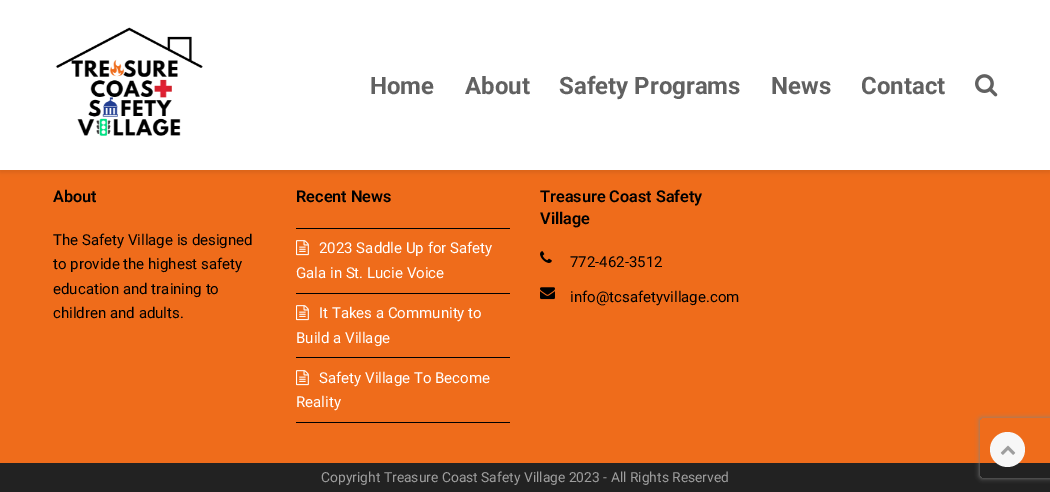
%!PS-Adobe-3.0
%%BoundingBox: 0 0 1050 492
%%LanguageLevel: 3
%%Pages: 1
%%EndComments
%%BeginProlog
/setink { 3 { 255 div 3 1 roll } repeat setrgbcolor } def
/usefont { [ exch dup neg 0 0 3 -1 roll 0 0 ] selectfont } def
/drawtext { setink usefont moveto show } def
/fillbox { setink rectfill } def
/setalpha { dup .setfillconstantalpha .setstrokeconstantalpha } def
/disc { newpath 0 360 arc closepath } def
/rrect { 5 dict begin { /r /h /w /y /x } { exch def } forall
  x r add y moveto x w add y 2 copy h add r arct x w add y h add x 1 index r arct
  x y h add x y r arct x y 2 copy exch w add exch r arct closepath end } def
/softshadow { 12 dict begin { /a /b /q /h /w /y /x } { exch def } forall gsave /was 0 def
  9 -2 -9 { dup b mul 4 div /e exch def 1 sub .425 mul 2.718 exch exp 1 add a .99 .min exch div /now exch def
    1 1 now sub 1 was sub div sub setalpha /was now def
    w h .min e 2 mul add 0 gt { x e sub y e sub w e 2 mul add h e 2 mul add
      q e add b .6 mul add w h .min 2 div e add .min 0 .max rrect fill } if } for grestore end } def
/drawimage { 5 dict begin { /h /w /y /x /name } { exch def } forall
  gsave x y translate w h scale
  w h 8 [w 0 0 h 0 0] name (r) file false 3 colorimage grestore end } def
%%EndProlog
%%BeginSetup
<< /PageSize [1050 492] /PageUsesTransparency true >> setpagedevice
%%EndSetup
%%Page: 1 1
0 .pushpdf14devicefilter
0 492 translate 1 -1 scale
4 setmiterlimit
0 0 1050 492 239 108 27 fillbox
0 0 0 setink
0 2 1050 170 0 2.5 0.1 softshadow
0 0 1050 170 255 255 255 fillbox
(assets/img1.rgb) 55 27 148 109 drawimage
(Home) 370 94 /Roboto-Bold 24 97 97 97 drawtext
(About) 465 94 /Roboto-Bold 24 97 97 97 drawtext
(Safety Programs) 559 94 /Roboto-Bold 24 97 97 97 drawtext
(News) 771 94 /Roboto-Bold 24 97 97 97 drawtext
(Contact) 861 94 /Roboto-Bold 24 97 97 97 drawtext
(assets/img2.rgb) 975 74 23 23 drawimage
(About) 53 202 /Roboto-SemiBold 16.25 0 0 0 drawtext
(The Safety Village is designed) 53 245 /Roboto-Regular 15 0 0 0 drawtext
(to provide the highest safety) 53 269 /Roboto-Regular 15 0 0 0 drawtext
(education and training to) 53 294 /Roboto-Regular 15 0 0 0 drawtext
(children and adults.) 53 318 /Roboto-Regular 15 0 0 0 drawtext
(Recent News) 296 202 /Roboto-SemiBold 16.25 0 0 0 drawtext
296 228 214 1 0 0 0 fillbox
296 293 214 1 0 0 0 fillbox
(assets/img3.rgb) 296 240 13 16 drawimage
(2023 Saddle Up for Safety) 319 253 /Roboto-Regular 15 255 255 255 drawtext
(Gala in St. Lucie Voice) 296 278 /Roboto-Regular 15 255 255 255 drawtext
296 357 214 1 0 0 0 fillbox
(assets/img3.rgb) 296 305 13 16 drawimage
(It Takes a Community to) 319 318 /Roboto-Regular 15 255 255 255 drawtext
(Build a Village) 296 343 /Roboto-Regular 15 255 255 255 drawtext
296 422 214 1 0 0 0 fillbox
(assets/img3.rgb) 296 370 13 16 drawimage
(Safety Village To Become) 319 383 /Roboto-Regular 15 255 255 255 drawtext
(Reality) 296 407 /Roboto-Regular 15 255 255 255 drawtext
(Treasure Coast Safety) 540 202 /Roboto-SemiBold 16.25 0 0 0 drawtext
(Village) 540 224 /Roboto-SemiBold 16.25 0 0 0 drawtext
(assets/img4.rgb) 540 251 12 12 drawimage
(772-462-3512) 570 267 /Roboto-Regular 15 0 0 0 drawtext
(assets/img5.rgb) 540 287 15 13 drawimage
(info@tcsafetyvillage.com) 570 302 /Roboto-Regular 15 0 0 0 drawtext
0 463 1050 29 34 34 34 fillbox
(Copyright Treasure Coast Safety Village 2023 - All Rights Reserved) 321 482 /Roboto-Regular 13.85 158 158 158 drawtext
gsave
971 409 moveto 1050 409 lineto 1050 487 lineto 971 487 lineto closepath 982 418 moveto 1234 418 lineto 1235 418 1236 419 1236 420 curveto 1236 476 lineto 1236 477 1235 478 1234 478 curveto 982 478 lineto 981 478 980 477 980 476 curveto 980 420 lineto 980 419 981 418 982 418 curveto closepath eoclip newpath
128 128 128 setink
980 418 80 60 2 2.5 1 softshadow
grestore
247 247 247 setink
1007.5 449.5 17.5 disc fill
(assets/img6.rgb) 1000 445 16 10 drawimage
.poppdf14devicefilter showpage
%%EOF
